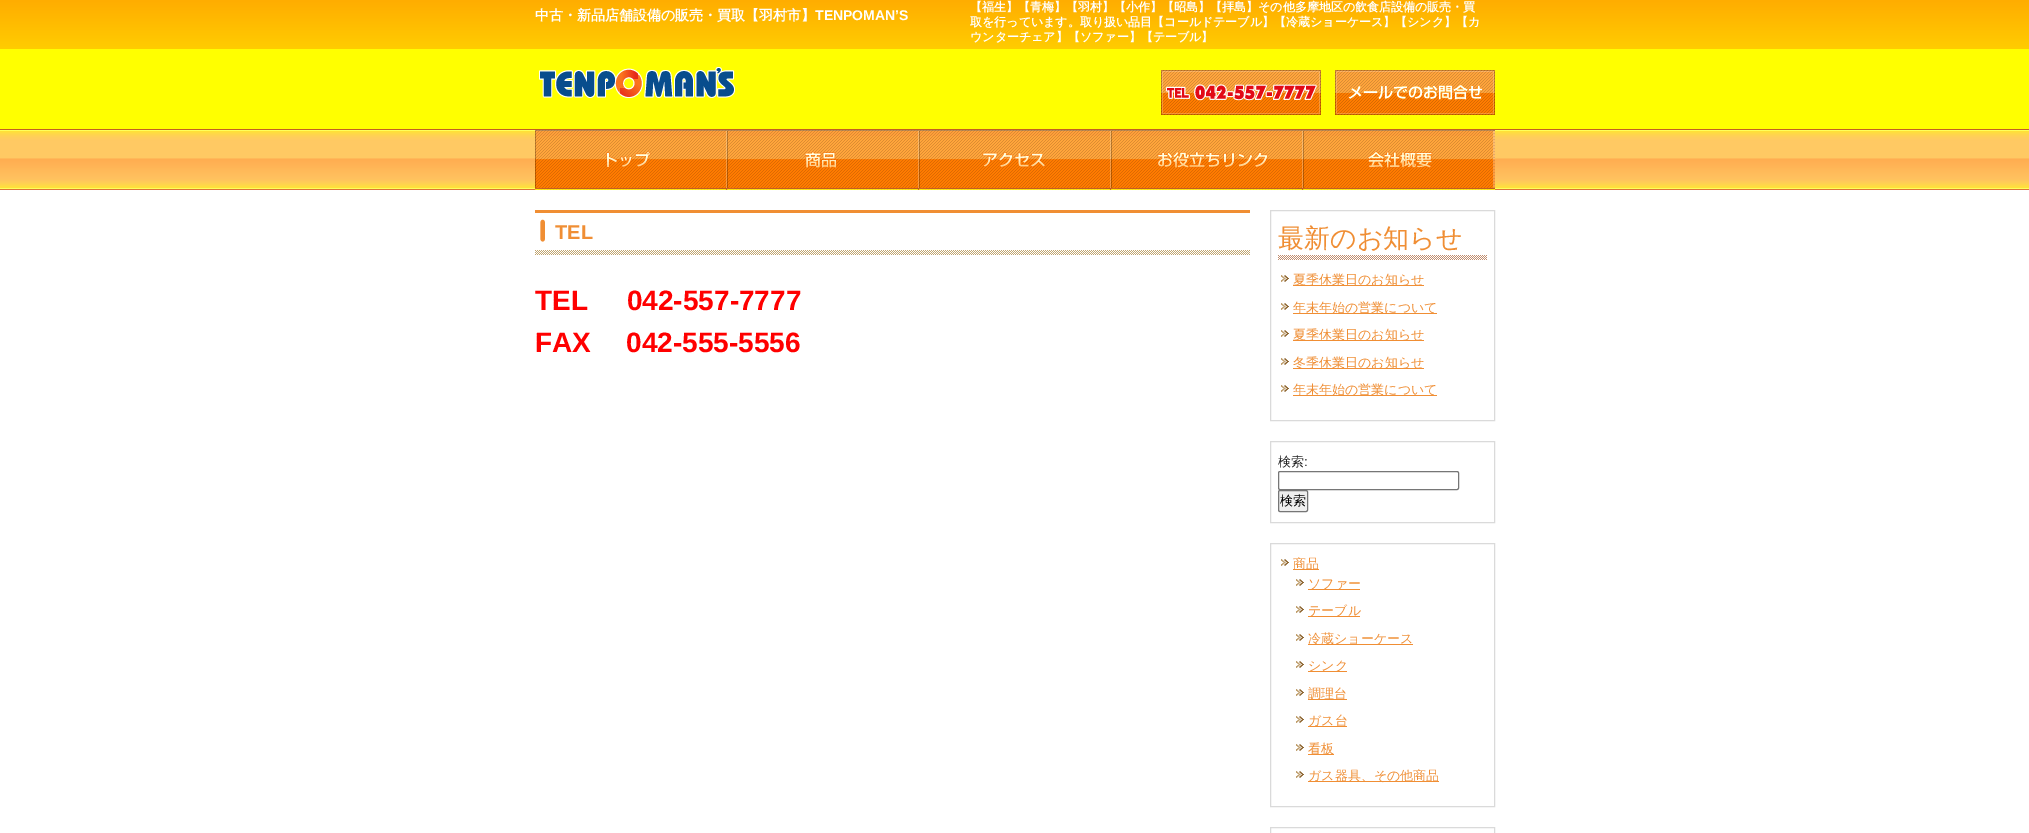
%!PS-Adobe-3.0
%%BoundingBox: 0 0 2029 833
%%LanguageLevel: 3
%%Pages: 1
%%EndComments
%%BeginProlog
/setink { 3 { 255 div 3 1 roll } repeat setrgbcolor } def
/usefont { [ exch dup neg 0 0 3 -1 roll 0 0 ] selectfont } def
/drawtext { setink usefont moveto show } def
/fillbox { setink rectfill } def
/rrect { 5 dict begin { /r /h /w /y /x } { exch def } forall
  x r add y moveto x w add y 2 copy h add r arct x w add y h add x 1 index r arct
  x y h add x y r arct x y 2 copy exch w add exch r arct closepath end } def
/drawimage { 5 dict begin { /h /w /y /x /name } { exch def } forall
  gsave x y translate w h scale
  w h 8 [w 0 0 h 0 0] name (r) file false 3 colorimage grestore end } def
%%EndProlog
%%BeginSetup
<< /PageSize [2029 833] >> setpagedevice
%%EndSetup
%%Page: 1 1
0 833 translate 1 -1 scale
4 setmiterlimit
0 0 2029 833 255 255 255 fillbox
(assets/img1.rgb) 0 0 2029 190 drawimage
(中古・新品店舗設備の販売・買取【羽村市】) 535 20 /WenQuanYiZenHei-Bold 14 255 255 255 drawtext
(TENPOMAN’S) 815 20 /LiberationSans-Bold 14 255 255 255 drawtext
(【福生】【青梅】【羽村】【小作】【昭島】【拝島】その他多摩地区の飲食店設備の販売・買) 970 11 /WenQuanYiZenHei-Bold 12 255 255 255 drawtext
(取を行っています。取り扱い品目【コールドテーブル】【冷蔵ショーケース】【シンク】【カ) 970 26 /WenQuanYiZenHei-Bold 12 255 255 255 drawtext
(ウンターチェア】【ソファー】【テーブル】) 970 41 /WenQuanYiZenHei-Bold 12 255 255 255 drawtext
(assets/img2.rgb) 539 67 196 31 drawimage
(assets/img3.rgb) 1161 70 160 45 drawimage
(assets/img4.rgb) 1335 70 160 45 drawimage
(assets/img5.rgb) 535 130 960 60 drawimage
(assets/img6.rgb) 535 210 715 45 drawimage
(TEL) 555 239 /LiberationSans-Bold 20 240 142 52 drawtext
(TEL     042-557-7777) 535 310 /LiberationSans-Bold 28 255 0 0 drawtext
(FAX) 535 352 /LiberationSans-Bold 28 255 0 0 drawtext
(042-555-5556) 626 352 /LiberationSans-Bold 28 255 0 0 drawtext
218 218 218 setink
1270.5 210.5 224 210 rectstroke
(assets/img7.rgb) 1278 255 209 5 drawimage
(最新のお知らせ) 1278 247 /WenQuanYiZenHei-Medium 26 240 142 52 drawtext
(assets/img8.rgb) 1281 275 8 7 drawimage
1293 285 131 1 240 142 52 fillbox
(夏季休業日のお知らせ) 1293 284 /WenQuanYiZenHei-Medium 13 240 142 52 drawtext
(assets/img8.rgb) 1281 303 8 7 drawimage
1293 313 144 1 240 142 52 fillbox
(年末年始の営業について) 1293 312 /WenQuanYiZenHei-Medium 13 240 142 52 drawtext
(assets/img8.rgb) 1281 330 8 7 drawimage
1293 340 131 1 240 142 52 fillbox
(夏季休業日のお知らせ) 1293 339 /WenQuanYiZenHei-Medium 13 240 142 52 drawtext
(assets/img8.rgb) 1281 358 8 7 drawimage
1293 368 131 1 240 142 52 fillbox
(冬季休業日のお知らせ) 1293 367 /WenQuanYiZenHei-Medium 13 240 142 52 drawtext
(assets/img8.rgb) 1281 385 8 7 drawimage
1293 395 144 1 240 142 52 fillbox
(年末年始の営業について) 1293 394 /WenQuanYiZenHei-Medium 13 240 142 52 drawtext
218 218 218 setink
1270.5 441.5 224 81 rectstroke
(検索) 1278 466 /WenQuanYiZenHei-Medium 13 37 37 37 drawtext
(:) 1304 466 /LiberationSans-Regular 13 37 37 37 drawtext
118 118 118 setink
1278.5 471.5 180 18 1.5 rrect stroke
239 239 239 setink
1278.5 490.5 29 21 1.5 rrect gsave fill grestore
118 118 118 setink
stroke
(検索) 1280 505 /WenQuanYiZenHei-Medium 13 0 0 0 drawtext
218 218 218 setink
1270.5 543.5 224 263 rectstroke
(assets/img8.rgb) 1281 559 8 7 drawimage
1293 569 26 1 240 142 52 fillbox
(商品) 1293 568 /WenQuanYiZenHei-Medium 13 240 142 52 drawtext
(assets/img8.rgb) 1296 579 8 7 drawimage
1308 589 52 1 240 142 52 fillbox
(ソファー) 1308 588 /WenQuanYiZenHei-Medium 13 240 142 52 drawtext
(assets/img8.rgb) 1296 606 8 7 drawimage
1308 616 52 1 240 142 52 fillbox
(テーブル) 1308 615 /WenQuanYiZenHei-Medium 13 240 142 52 drawtext
(assets/img8.rgb) 1296 634 8 7 drawimage
1308 644 105 1 240 142 52 fillbox
(冷蔵ショーケース) 1308 643 /WenQuanYiZenHei-Medium 13 240 142 52 drawtext
(assets/img8.rgb) 1296 661 8 7 drawimage
1308 671 39 1 240 142 52 fillbox
(シンク) 1308 670 /WenQuanYiZenHei-Medium 13 240 142 52 drawtext
(assets/img8.rgb) 1296 689 8 7 drawimage
1308 699 39 1 240 142 52 fillbox
(調理台) 1308 698 /WenQuanYiZenHei-Medium 13 240 142 52 drawtext
(assets/img8.rgb) 1296 716 8 7 drawimage
1308 726 39 1 240 142 52 fillbox
(ガス台) 1308 725 /WenQuanYiZenHei-Medium 13 240 142 52 drawtext
(assets/img8.rgb) 1296 744 8 7 drawimage
1308 754 26 1 240 142 52 fillbox
(看板) 1308 753 /WenQuanYiZenHei-Medium 13 240 142 52 drawtext
(assets/img8.rgb) 1296 771 8 7 drawimage
1308 781 131 1 240 142 52 fillbox
(ガス器具、その他商品) 1308 780 /WenQuanYiZenHei-Medium 13 240 142 52 drawtext
218 218 218 setink
1270.5 827.5 224 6 rectstroke
showpage
%%EOF
